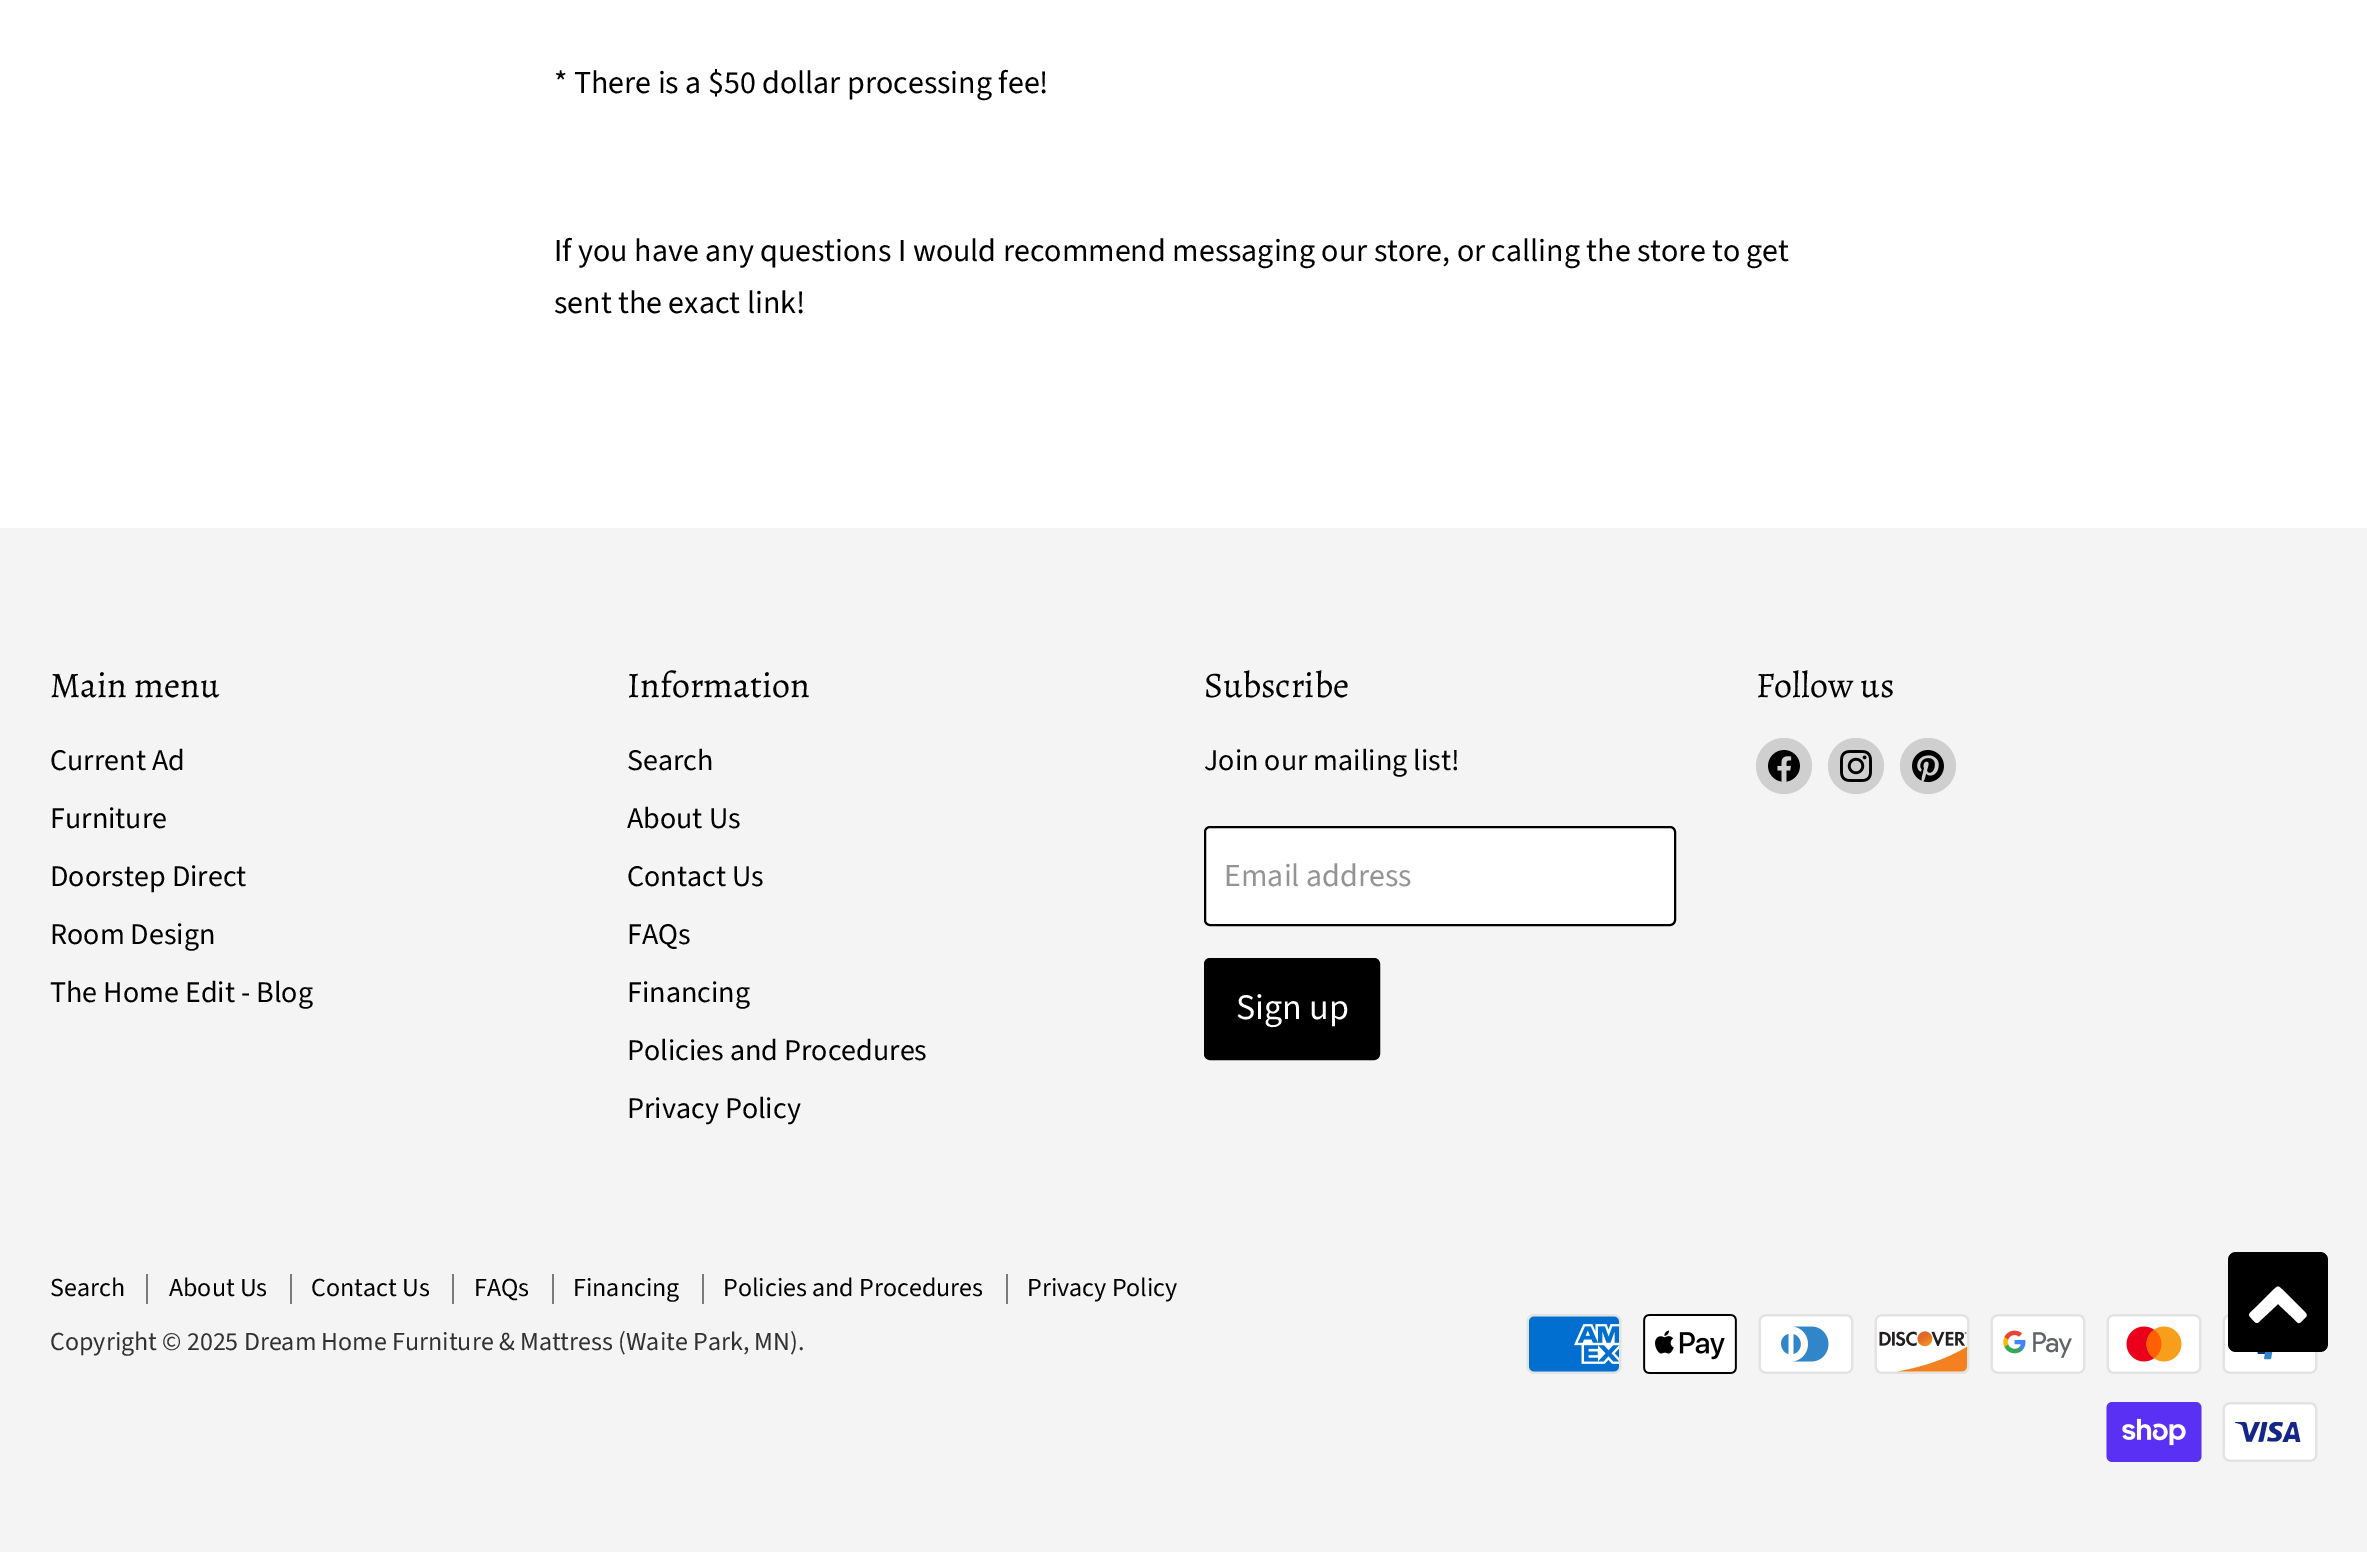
%!PS-Adobe-3.0
%%BoundingBox: 0 0 2367 1552
%%LanguageLevel: 3
%%Pages: 1
%%EndComments
%%BeginProlog
/setink { 3 { 255 div 3 1 roll } repeat setrgbcolor } def
/usefont { [ exch dup neg 0 0 3 -1 roll 0 0 ] selectfont } def
/drawtext { setink usefont moveto show } def
/fillbox { setink rectfill } def
/disc { newpath 0 360 arc closepath } def
/rrect { 5 dict begin { /r /h /w /y /x } { exch def } forall
  x r add y moveto x w add y 2 copy h add r arct x w add y h add x 1 index r arct
  x y h add x y r arct x y 2 copy exch w add exch r arct closepath end } def
/drawimage { 5 dict begin { /h /w /y /x /name } { exch def } forall
  gsave x y translate w h scale
  w h 8 [w 0 0 h 0 0] name (r) file false 3 colorimage grestore end } def
%%EndProlog
%%BeginSetup
<< /PageSize [2367 1552] >> setpagedevice
%%EndSetup
%%Page: 1 1
0 1552 translate 1 -1 scale
4 setmiterlimit
0 0 2367 1552 255 255 255 fillbox
(* There is a $50 dollar processing fee!) 554 93 /SourceSansPro-Regular 32 0 0 0 drawtext
(If you have any questions I would recommend messaging our store, or calling the store to get) 554 261 /SourceSansPro-Regular 32 0 0 0 drawtext
(sent the exact link!) 554 313 /SourceSansPro-Regular 32 0 0 0 drawtext
0 528 2367 1024 244 244 244 fillbox
(Main menu) 50 697 /Alegreya-Regular 36 0 0 0 drawtext
(Current Ad) 50 770 /SourceSansPro-Regular 30 0 0 0 drawtext
(Furniture) 50 828 /SourceSansPro-Regular 30 0 0 0 drawtext
(Doorstep Direct) 50 886 /SourceSansPro-Regular 30 0 0 0 drawtext
(Room Design) 50 944 /SourceSansPro-Regular 30 0 0 0 drawtext
(The Home Edit - Blog) 50 1002 /SourceSansPro-Regular 30 0 0 0 drawtext
(Information) 627 697 /Alegreya-Regular 36 0 0 0 drawtext
(Search) 627 770 /SourceSansPro-Regular 30 0 0 0 drawtext
(About Us) 627 828 /SourceSansPro-Regular 30 0 0 0 drawtext
(Contact Us) 627 886 /SourceSansPro-Regular 30 0 0 0 drawtext
(FAQs) 627 944 /SourceSansPro-Regular 30 0 0 0 drawtext
(Financing) 627 1002 /SourceSansPro-Regular 30 0 0 0 drawtext
(Policies and Procedures) 627 1060 /SourceSansPro-Regular 30 0 0 0 drawtext
(Privacy Policy) 627 1118 /SourceSansPro-Regular 30 0 0 0 drawtext
(Subscribe) 1204 697 /Alegreya-Regular 36 0 0 0 drawtext
(Join our mailing list!) 1204 770 /SourceSansPro-Regular 30 0 0 0 drawtext
255 255 255 setink
1205 827 470 98 5 rrect gsave fill grestore
0 0 0 setink
2 setlinewidth
stroke
(Email address) 1224 886 /SourceSansPro-Regular 32 148 148 148 drawtext
0 0 0 setink
1205 959 174 100 5 rrect gsave fill grestore
stroke
(Sign up) 1236 1019 /SourceSansPro-Regular 36 255 255 255 drawtext
(Follow us) 1756 697 /Alegreya-Regular 36 0 0 0 drawtext
207 207 207 setink
1784 766 28 disc fill
(assets/img1.rgb) 1768 750 32 32 drawimage
1856 766 28 disc fill
(assets/img2.rgb) 1840 750 32 32 drawimage
1928 766 28 disc fill
(assets/img3.rgb) 1912 750 32 33 drawimage
146 1274 2 30 122 122 122 fillbox
(Search) 50 1296 /SourceSansPro-Regular 26 0 0 0 drawtext
290 1274 2 30 122 122 122 fillbox
(About Us) 169 1296 /SourceSansPro-Regular 26 0 0 0 drawtext
452 1274 2 30 122 122 122 fillbox
(Contact Us) 311 1296 /SourceSansPro-Regular 26 0 0 0 drawtext
552 1274 2 30 122 122 122 fillbox
(FAQs) 474 1296 /SourceSansPro-Regular 26 0 0 0 drawtext
702 1274 2 30 122 122 122 fillbox
(Financing) 573 1296 /SourceSansPro-Regular 26 0 0 0 drawtext
1006 1274 2 30 122 122 122 fillbox
(Policies and Procedures) 723 1296 /SourceSansPro-Regular 26 0 0 0 drawtext
(Privacy Policy) 1027 1296 /SourceSansPro-Regular 26 0 0 0 drawtext
(Copyright © 2025 Dream Home Furniture & Mattress \(Waite Park, MN\).) 50 1350 /SourceSansPro-Regular 26 49 49 49 drawtext
(assets/img4.rgb) 1526 1314 96 60 drawimage
(assets/img5.rgb) 1643 1314 94 60 drawimage
(assets/img6.rgb) 1758 1314 96 60 drawimage
(assets/img7.rgb) 1874 1314 96 60 drawimage
(assets/img8.rgb) 1990 1314 96 60 drawimage
(assets/img9.rgb) 2106 1314 96 60 drawimage
(assets/img10.rgb) 2222 1314 96 60 drawimage
(assets/img11.rgb) 2106 1402 96 60 drawimage
(assets/img12.rgb) 2222 1402 96 60 drawimage
0 0 0 setink
2228 1252 100 100 8 rrect fill
255 255 255 setink
2306 1317 moveto 2299 1323 2300 1326 2294 1319 curveto 2278 1304 lineto 2262 1319 lineto 2256 1325 2257 1324 2251 1318 curveto 2247 1314 2250 1313 2254 1309 curveto 2272 1291 lineto 2279 1285 2277 1285 2284 1291 curveto 2302 1309 lineto 2302 1310 2309 1314 2306 1317 curveto closepath fill
showpage
%%EOF
